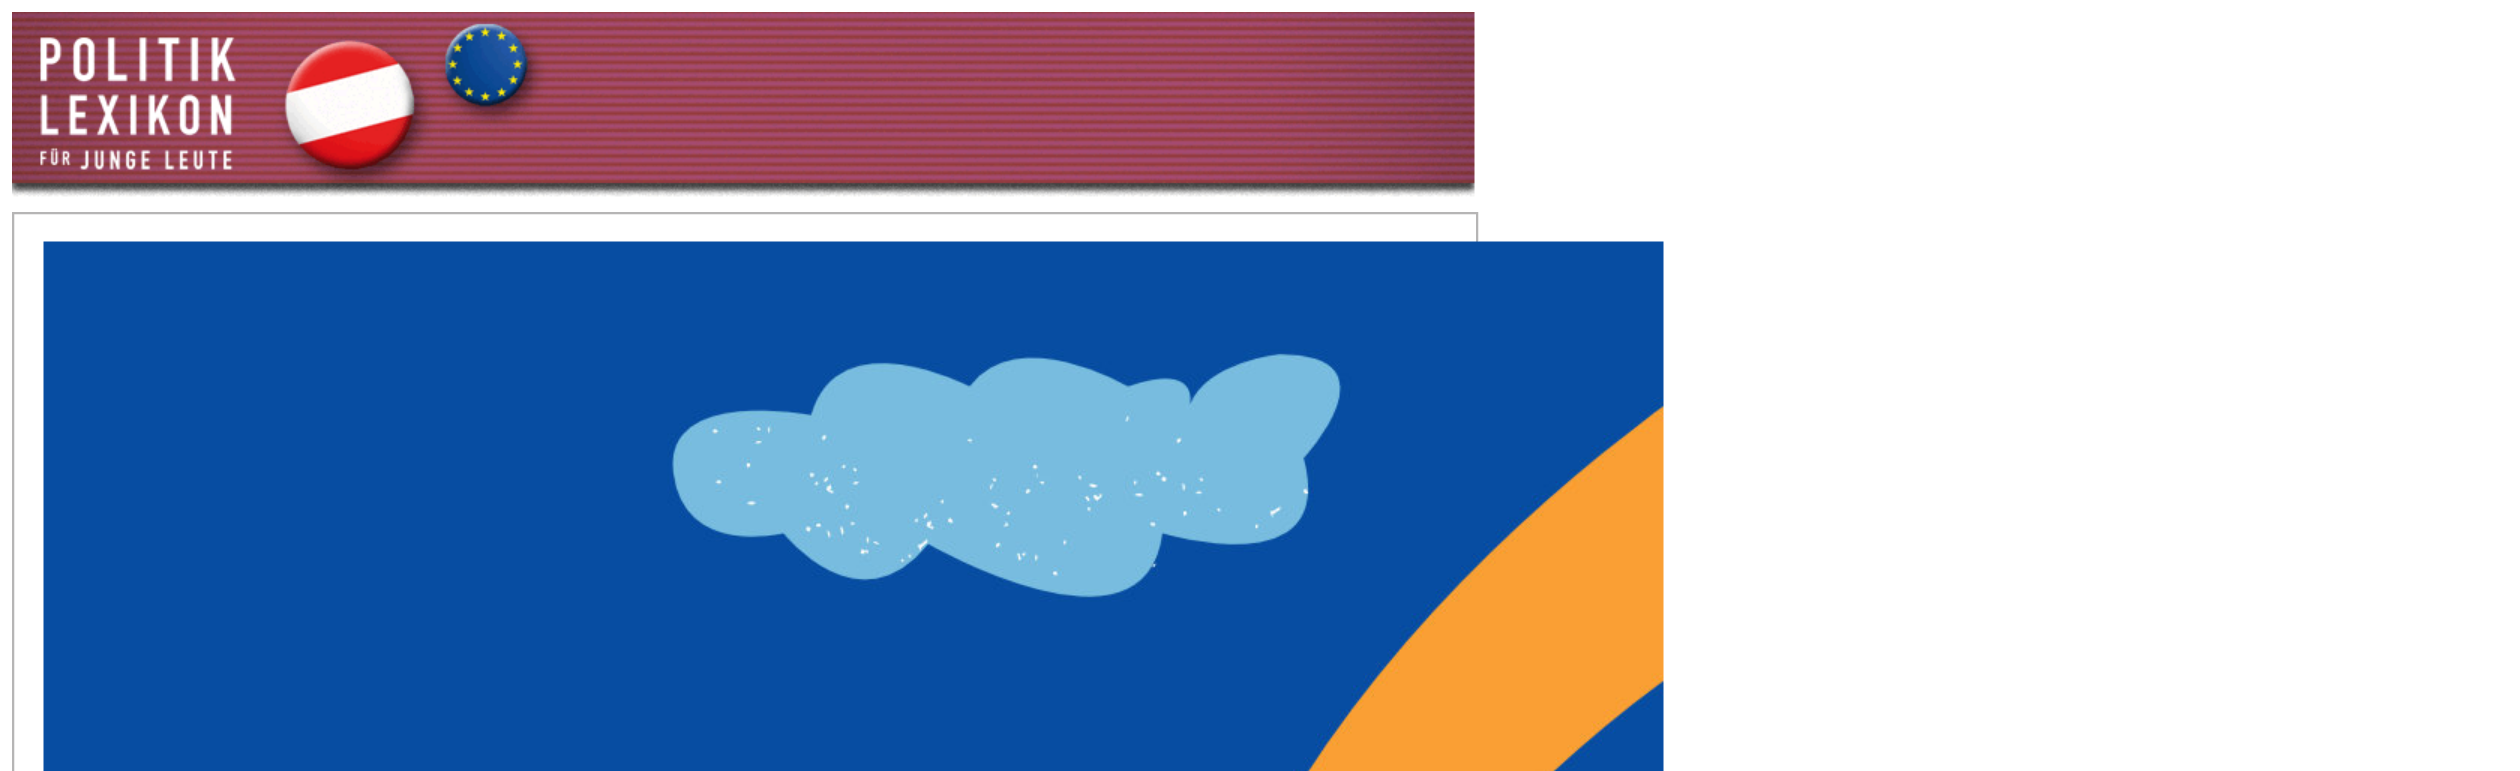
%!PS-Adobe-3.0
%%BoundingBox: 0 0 2520 771
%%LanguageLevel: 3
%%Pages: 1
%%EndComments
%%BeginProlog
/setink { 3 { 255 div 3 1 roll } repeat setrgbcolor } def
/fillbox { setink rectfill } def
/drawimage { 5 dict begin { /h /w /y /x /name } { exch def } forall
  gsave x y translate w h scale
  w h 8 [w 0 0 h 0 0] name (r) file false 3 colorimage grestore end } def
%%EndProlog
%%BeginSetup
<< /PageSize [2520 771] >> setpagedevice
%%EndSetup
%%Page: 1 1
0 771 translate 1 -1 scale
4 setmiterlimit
0 0 2520 771 255 255 255 fillbox
(assets/img1.rgb) 12 12 1463 185 drawimage
182 181 181 setink
2 setlinewidth
13 213 1464 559 rectstroke
(assets/img2.rgb) 43 241 1621 530 drawimage
showpage
%%EOF
